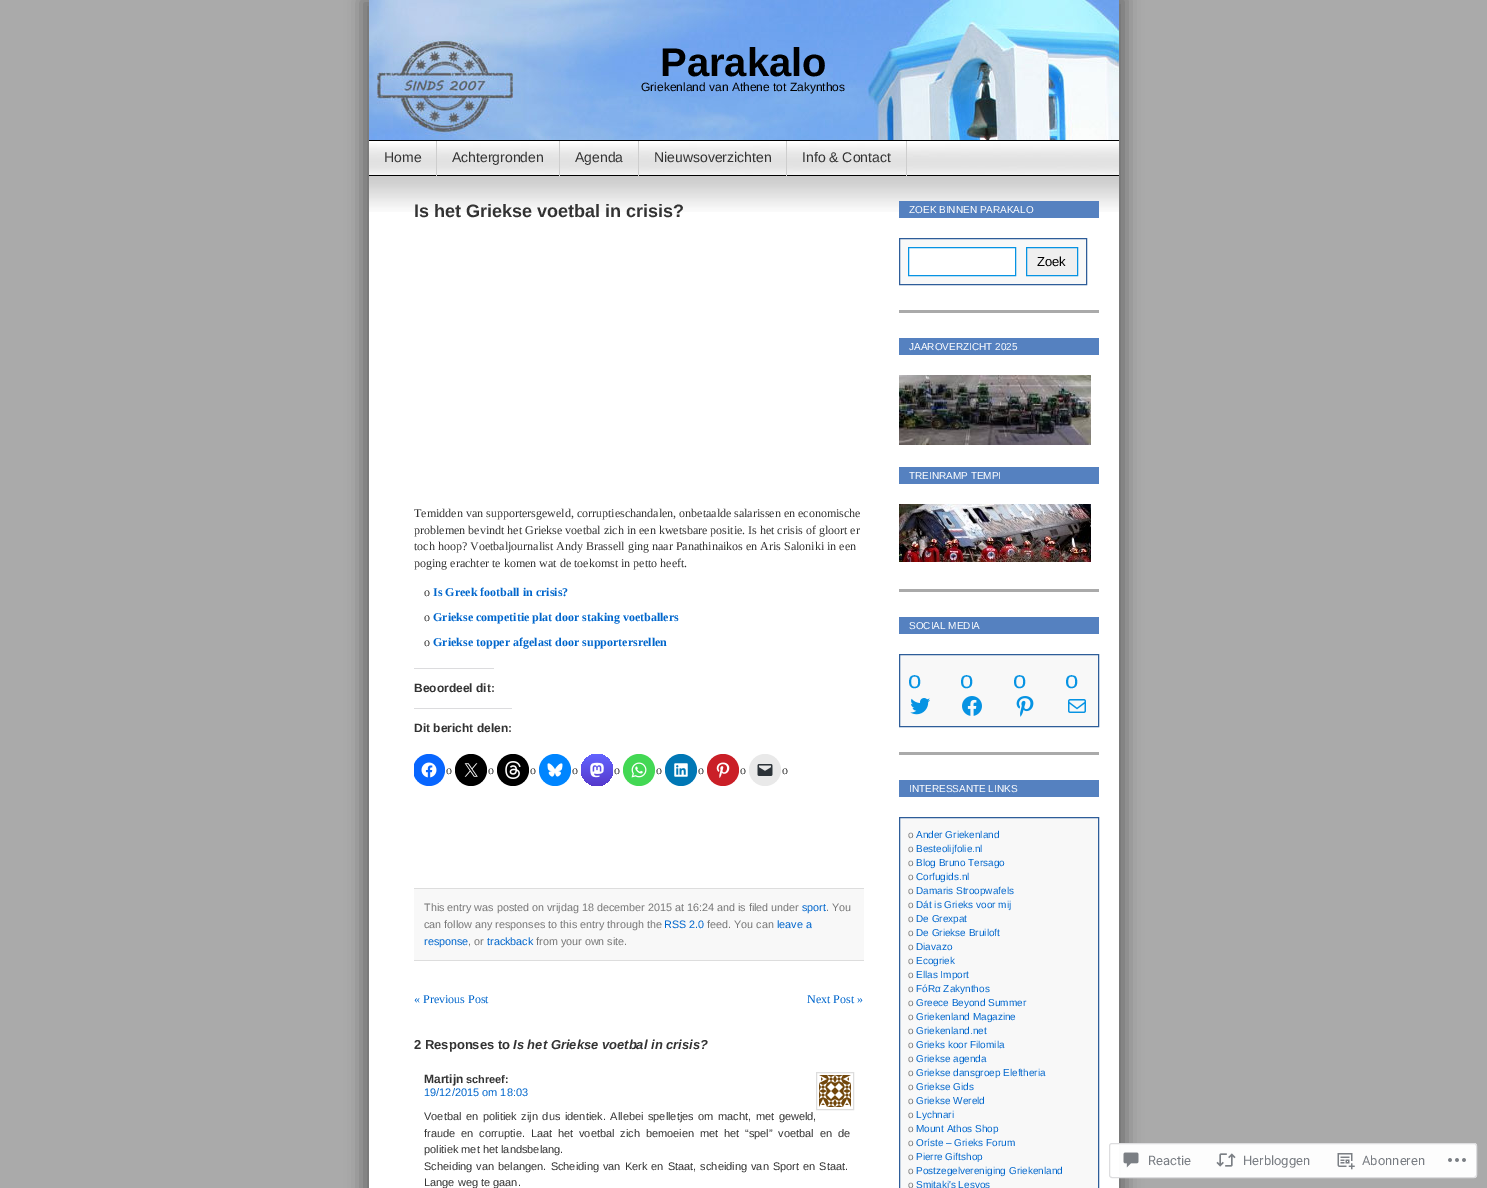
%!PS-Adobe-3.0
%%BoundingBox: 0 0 1487 1188
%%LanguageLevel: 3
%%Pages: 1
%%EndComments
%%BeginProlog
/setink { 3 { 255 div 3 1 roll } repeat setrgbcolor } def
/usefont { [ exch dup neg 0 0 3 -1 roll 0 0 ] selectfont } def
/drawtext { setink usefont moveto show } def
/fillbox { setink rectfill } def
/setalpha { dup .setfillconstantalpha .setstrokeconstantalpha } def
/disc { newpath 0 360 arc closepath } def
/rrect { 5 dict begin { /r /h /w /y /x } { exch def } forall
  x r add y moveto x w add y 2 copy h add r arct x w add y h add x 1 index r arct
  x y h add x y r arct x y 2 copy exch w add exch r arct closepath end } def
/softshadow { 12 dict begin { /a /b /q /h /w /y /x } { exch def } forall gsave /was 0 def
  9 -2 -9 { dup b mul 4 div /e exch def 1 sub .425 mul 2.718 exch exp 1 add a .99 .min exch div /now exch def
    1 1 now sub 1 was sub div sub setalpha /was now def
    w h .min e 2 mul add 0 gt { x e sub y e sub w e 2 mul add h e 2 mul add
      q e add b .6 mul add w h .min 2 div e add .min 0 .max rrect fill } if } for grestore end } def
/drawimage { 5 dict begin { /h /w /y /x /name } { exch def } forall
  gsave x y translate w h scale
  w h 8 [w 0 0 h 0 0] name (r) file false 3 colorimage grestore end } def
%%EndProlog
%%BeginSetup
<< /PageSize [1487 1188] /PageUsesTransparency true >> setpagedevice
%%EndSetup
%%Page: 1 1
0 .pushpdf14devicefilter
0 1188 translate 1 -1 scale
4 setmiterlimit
0 0 1487 1188 170 170 170 fillbox
0 0 0 setink
361 0 750 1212 0 8 0.3 softshadow
377 -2 750 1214 0 8 0.3 softshadow
369 141 750 1047 255 255 255 fillbox
369 140 750 1 0 0 0 fillbox
(assets/img1.rgb) 369 0 750 140 drawimage
(Parakalo) 660 76 /LiberationSans-Bold 40 0 0 0 drawtext
(Griekenland van Athene tot Zakynthos) 641 91 /LiberationSans-Regular 12 0 0 0 drawtext
(assets/img2.rgb) 369 143 750 32 drawimage
369 175 750 1 0 0 0 fillbox
436 141 1 35 206 206 206 fillbox
(Home) 384 162 /LiberationSans-Regular 14 51 51 51 drawtext
559 141 1 35 206 206 206 fillbox
(Achtergronden) 452 162 /LiberationSans-Regular 14 51 51 51 drawtext
638 141 1 35 206 206 206 fillbox
(Agenda) 575 162 /LiberationSans-Regular 14 51 51 51 drawtext
786 141 1 35 206 206 206 fillbox
(Nieuwsoverzichten) 654 162 /LiberationSans-Regular 14 51 51 51 drawtext
906 141 1 35 206 206 206 fillbox
(Info & Contact) 802 162 /LiberationSans-Regular 14 51 51 51 drawtext
(assets/img3.rgb) 369 176 750 36 drawimage
(Is het Griekse voetbal in crisis?) 414 217 /LiberationSans-Bold 18 51 51 51 drawtext
(Temidden van supportersgeweld, corruptieschandalen, onbetaalde salarissen en economische) 414 517 /LiberationSerif-Regular 12 51 51 51 drawtext
(problemen bevindt het Griekse voetbal zich in een kwetsbare positie. Is het crisis of gloort er) 414 534 /LiberationSerif-Regular 12 51 51 51 drawtext
(toch hoop? Voetbaljournalist Andy Brassell ging naar Panathinaikos en Aris Saloniki in een) 414 550 /LiberationSerif-Regular 12 51 51 51 drawtext
(poging erachter te komen wat de toekomst in petto heeft.) 414 567 /LiberationSerif-Regular 12 51 51 51 drawtext
(o) 424 596 /LiberationSerif-Regular 12 51 51 51 drawtext
(Is Greek football in crisis?) 433 596 /LiberationSerif-Bold 12 0 102 204 drawtext
(o) 424 621 /LiberationSerif-Regular 12 51 51 51 drawtext
(Griekse competitie plat door staking voetballers) 433 621 /LiberationSerif-Bold 12 0 102 204 drawtext
(o) 424 646 /LiberationSerif-Regular 12 51 51 51 drawtext
(Griekse topper afgelast door supportersrellen) 433 646 /LiberationSerif-Bold 12 0 102 204 drawtext
414 668 80 1 220 220 222 fillbox
(Beoordeel dit:) 414 692 /LiberationSans-Bold 12 51 51 51 drawtext
414 708 98 1 220 220 222 fillbox
(Dit bericht delen:) 414 732 /LiberationSans-Bold 12 51 51 51 drawtext
gsave
414 222 450 785 rectclip
8 102 255 setink
429 770 16 disc fill
grestore
(assets/img4.rgb) 421 762 16 16 drawimage
(o) 446 774 /LiberationSerif-Regular 12 51 51 51 drawtext
0 0 0 setink
471 770 16 disc fill
(assets/img5.rgb) 464 763 14 14 drawimage
(o) 488 774 /LiberationSerif-Regular 12 51 51 51 drawtext
0 0 0 setink
513 770 16 disc fill
(assets/img6.rgb) 505 761 16 18 drawimage
(o) 530 774 /LiberationSerif-Regular 12 51 51 51 drawtext
0 133 255 setink
555 770 16 disc fill
(assets/img7.rgb) 547 763 16 14 drawimage
(o) 572 774 /LiberationSerif-Regular 12 51 51 51 drawtext
gsave 597 770 16 disc clip newpath
<< /ShadingType 2 /ColorSpace /DeviceRGB /Coords [597 786 597 754] /Extend [true true] /Function << /FunctionType 2 /Domain [0 1] /C0 [0.337 0.227 0.8] /C1 [0.388 0.392 1] /N 1 >> >> shfill grestore
(assets/img8.rgb) 590 762 14 16 drawimage
(o) 614 774 /LiberationSerif-Regular 12 51 51 51 drawtext
67 216 84 setink
639 770 16 disc fill
(assets/img9.rgb) 631 762 16 16 drawimage
(o) 656 774 /LiberationSerif-Regular 12 51 51 51 drawtext
0 119 181 setink
681 770 16 disc fill
(assets/img10.rgb) 674 763 14 14 drawimage
(o) 698 774 /LiberationSerif-Regular 12 51 51 51 drawtext
202 31 39 setink
723 770 16 disc fill
(assets/img11.rgb) 716 762 14 16 drawimage
(o) 740 774 /LiberationSerif-Regular 12 51 51 51 drawtext
233 233 233 setink
765 770 16 disc fill
(assets/img12.rgb) 757 764 16 12 drawimage
(o) 782 774 /LiberationSerif-Regular 12 51 51 51 drawtext
414 889 450 71 248 248 248 fillbox
414 888 450 1 221 221 221 fillbox
414 960 450 1 221 221 221 fillbox
(This entry was posted on vrijdag 18 december 2015 at 16:24 and is filed under) 424 911 /LiberationSans-Regular 10.8 119 119 119 drawtext
(sport) 802 911 /LiberationSans-Regular 10.8 0 102 204 drawtext
(. You) 826 911 /LiberationSans-Regular 10.8 119 119 119 drawtext
(can follow any responses to this entry through the) 424 928 /LiberationSans-Regular 10.8 119 119 119 drawtext
(RSS 2.0) 664 928 /LiberationSans-Regular 10.8 0 102 204 drawtext
(feed. You can) 707 928 /LiberationSans-Regular 10.8 119 119 119 drawtext
(leave a) 777 928 /LiberationSans-Regular 10.8 0 102 204 drawtext
(response) 424 945 /LiberationSans-Regular 10.8 0 102 204 drawtext
(, or) 468 945 /LiberationSans-Regular 10.8 119 119 119 drawtext
(trackback) 487 945 /LiberationSans-Regular 10.8 0 102 204 drawtext
(from your own site.) 536 945 /LiberationSans-Regular 10.8 119 119 119 drawtext
(« Previous Post) 414 1003 /LiberationSerif-Regular 12 0 102 204 drawtext
(Next Post ») 807 1003 /LiberationSerif-Regular 12 0 102 204 drawtext
(2 Responses to) 414 1049 /LiberationSans-Bold 13 51 51 51 drawtext
(Is het Griekse voetbal in crisis?) 513 1049 /LiberationSans-BoldItalic 13 51 51 51 drawtext
(Martijn) 424 1083 /LiberationSans-Bold 12 51 51 51 drawtext
(schreef:) 466 1083 /LiberationSans-Bold 11 51 51 51 drawtext
221 221 221 setink
816.5 1072.5 37 37 rectstroke
(assets/img13.rgb) 819 1075 32 32 drawimage
(19/12/2015 om 18:03) 424 1096 /LiberationSans-Regular 11 0 102 204 drawtext
51 51 51 setink
424 1120 moveto 1.5 0 32 (Voetbal en politiek zijn dus identiek. Allebei spelletjes om macht, met geweld,) widthshow
424 1137 moveto 2.75 0 32 (fraude en corruptie. Laat het voetbal zich bemoeien met het “spel” voetbal en de) widthshow
(politiek met het landsbelang.) 424 1153 /LiberationSans-Regular 11 51 51 51 drawtext
424 1170 moveto 1 0 32 (Scheiding van belangen. Scheiding van Kerk en Staat, scheiding van Sport en Staat.) widthshow
(Lange weg te gaan.) 424 1186 /LiberationSans-Regular 11 51 51 51 drawtext
899 201 200 17 85 129 192 fillbox
(ZOEK BINNEN PARAKALO) 909 213 /LiberationSans-Regular 10 255 255 255 drawtext
248 248 248 setink
899.5 238.5 moveto 1086.5 238.5 lineto 1086.5 284.5 lineto 899.5 284.5 lineto closepath gsave fill grestore
46 93 153 setink
stroke
255 255 255 setink
908.5 247.5 moveto 1015.5 247.5 lineto 1015.5 275.5 lineto 908.5 275.5 lineto closepath gsave fill grestore
6 147 227 setink
stroke
239 239 239 setink
1026.5 247.5 moveto 1077.5 247.5 lineto 1077.5 275.5 lineto 1026.5 275.5 lineto closepath gsave fill grestore
6 147 227 setink
stroke
(Zoek) 1037 266 /LiberationSans-Regular 13 0 0 0 drawtext
899 310 200 3 170 170 170 fillbox
899 338 200 17 85 129 192 fillbox
(JAAROVERZICHT 2025) 909 350 /LiberationSans-Regular 10 255 255 255 drawtext
(assets/img14.rgb) 899 375 192 70 drawimage
899 467 200 17 85 129 192 fillbox
(TREINRAMP TEMPI) 909 479 /LiberationSans-Regular 10 255 255 255 drawtext
(assets/img15.rgb) 899 504 192 58 drawimage
899 589 200 3 170 170 170 fillbox
899 617 200 17 85 129 192 fillbox
(SOCIAL MEDIA) 909 629 /LiberationSans-Regular 10 255 255 255 drawtext
248 248 248 setink
899.5 654.5 moveto 1098.5 654.5 lineto 1098.5 726.5 lineto 899.5 726.5 lineto closepath gsave fill grestore
46 93 153 setink
stroke
(o) 908 688 /LiberationSans-Regular 24 6 147 227 drawtext
(assets/img16.rgb) 910 698 20 17 drawimage
(o) 960 688 /LiberationSans-Regular 24 6 147 227 drawtext
(assets/img17.rgb) 962 696 20 20 drawimage
(o) 1013 688 /LiberationSans-Regular 24 6 147 227 drawtext
(assets/img18.rgb) 1016 696 18 21 drawimage
(o) 1065 688 /LiberationSans-Regular 24 6 147 227 drawtext
(assets/img19.rgb) 1068 699 18 14 drawimage
899 752 200 3 170 170 170 fillbox
899 780 200 17 85 129 192 fillbox
(INTERESSANTE LINKS) 909 792 /LiberationSans-Regular 10 255 255 255 drawtext
248 248 248 setink
899.5 817.5 moveto 1098.5 817.5 lineto 1098.5 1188.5 lineto 899.5 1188.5 lineto closepath gsave fill grestore
46 93 153 setink
stroke
(o) 908 838 /LiberationSans-Regular 10 119 119 119 drawtext
(Ander Griekenland) 916 838 /LiberationSans-Regular 10 0 102 204 drawtext
(o) 908 852 /LiberationSans-Regular 10 119 119 119 drawtext
(Besteolijfolie.nl) 916 852 /LiberationSans-Regular 10 0 102 204 drawtext
(o) 908 866 /LiberationSans-Regular 10 119 119 119 drawtext
(Blog Bruno Tersago) 916 866 /LiberationSans-Regular 10 0 102 204 drawtext
(o) 908 880 /LiberationSans-Regular 10 119 119 119 drawtext
(Corfugids.nl) 916 880 /LiberationSans-Regular 10 0 102 204 drawtext
(o) 908 894 /LiberationSans-Regular 10 119 119 119 drawtext
(Damaris Stroopwafels) 916 894 /LiberationSans-Regular 10 0 102 204 drawtext
(o) 908 908 /LiberationSans-Regular 10 119 119 119 drawtext
(Dát is Grieks voor mij) 916 908 /LiberationSans-Regular 10 0 102 204 drawtext
(o) 908 922 /LiberationSans-Regular 10 119 119 119 drawtext
(De Grexpat) 916 922 /LiberationSans-Regular 10 0 102 204 drawtext
(o) 908 936 /LiberationSans-Regular 10 119 119 119 drawtext
(De Griekse Bruiloft) 916 936 /LiberationSans-Regular 10 0 102 204 drawtext
(o) 908 950 /LiberationSans-Regular 10 119 119 119 drawtext
(Diavazo) 916 950 /LiberationSans-Regular 10 0 102 204 drawtext
(o) 908 964 /LiberationSans-Regular 10 119 119 119 drawtext
(Ecogriek) 916 964 /LiberationSans-Regular 10 0 102 204 drawtext
(o) 908 978 /LiberationSans-Regular 10 119 119 119 drawtext
(Ellas Import) 916 978 /LiberationSans-Regular 10 0 102 204 drawtext
(o) 908 992 /LiberationSans-Regular 10 119 119 119 drawtext
(FόRα Zakynthos) 916 992 /LiberationSans-Regular 10 0 102 204 drawtext
(o) 908 1006 /LiberationSans-Regular 10 119 119 119 drawtext
(Greece Beyond Summer) 916 1006 /LiberationSans-Regular 10 0 102 204 drawtext
(o) 908 1020 /LiberationSans-Regular 10 119 119 119 drawtext
(Griekenland Magazine) 916 1020 /LiberationSans-Regular 10 0 102 204 drawtext
(o) 908 1034 /LiberationSans-Regular 10 119 119 119 drawtext
(Griekenland.net) 916 1034 /LiberationSans-Regular 10 0 102 204 drawtext
(o) 908 1048 /LiberationSans-Regular 10 119 119 119 drawtext
(Grieks koor Filomila) 916 1048 /LiberationSans-Regular 10 0 102 204 drawtext
(o) 908 1062 /LiberationSans-Regular 10 119 119 119 drawtext
(Griekse agenda) 916 1062 /LiberationSans-Regular 10 0 102 204 drawtext
(o) 908 1076 /LiberationSans-Regular 10 119 119 119 drawtext
(Griekse dansgroep Eleftheria) 916 1076 /LiberationSans-Regular 10 0 102 204 drawtext
(o) 908 1090 /LiberationSans-Regular 10 119 119 119 drawtext
(Griekse Gids) 916 1090 /LiberationSans-Regular 10 0 102 204 drawtext
(o) 908 1104 /LiberationSans-Regular 10 119 119 119 drawtext
(Griekse Wereld) 916 1104 /LiberationSans-Regular 10 0 102 204 drawtext
(o) 908 1118 /LiberationSans-Regular 10 119 119 119 drawtext
(Lychnari) 916 1118 /LiberationSans-Regular 10 0 102 204 drawtext
(o) 908 1132 /LiberationSans-Regular 10 119 119 119 drawtext
(Mount Athos Shop) 916 1132 /LiberationSans-Regular 10 0 102 204 drawtext
(o) 908 1146 /LiberationSans-Regular 10 119 119 119 drawtext
(Oríste – Grieks Forum) 916 1146 /LiberationSans-Regular 10 0 102 204 drawtext
(o) 908 1160 /LiberationSans-Regular 10 119 119 119 drawtext
(Pierre Giftshop) 916 1160 /LiberationSans-Regular 10 0 102 204 drawtext
(o) 908 1174 /LiberationSans-Regular 10 119 119 119 drawtext
(Postzegelvereniging Griekenland) 916 1174 /LiberationSans-Regular 10 0 102 204 drawtext
(o) 908 1188 /LiberationSans-Regular 10 119 119 119 drawtext
(Smitaki's Lesvos) 916 1188 /LiberationSans-Regular 10 0 102 204 drawtext
0.98 setalpha
255 255 255 setink
1109 1143 368 35 3 rrect fill
220 220 222 setink
1109.5 1143.5 367 34 2.5 rrect stroke
1 setalpha
(assets/img20.rgb) 1123 1152 16 16 drawimage
(Reactie) 1148 1165 /Roboto-Regular 13 121 125 131 drawtext
(assets/img21.rgb) 1216 1153 20 14 drawimage
(Herbloggen) 1243 1165 /Roboto-Regular 13 121 125 131 drawtext
(assets/img22.rgb) 1337 1153 18 17 drawimage
(Abonneren) 1362 1165 /Roboto-Regular 13 121 125 131 drawtext
(assets/img23.rgb) 1448 1158 18 4 drawimage
.poppdf14devicefilter showpage
%%EOF
